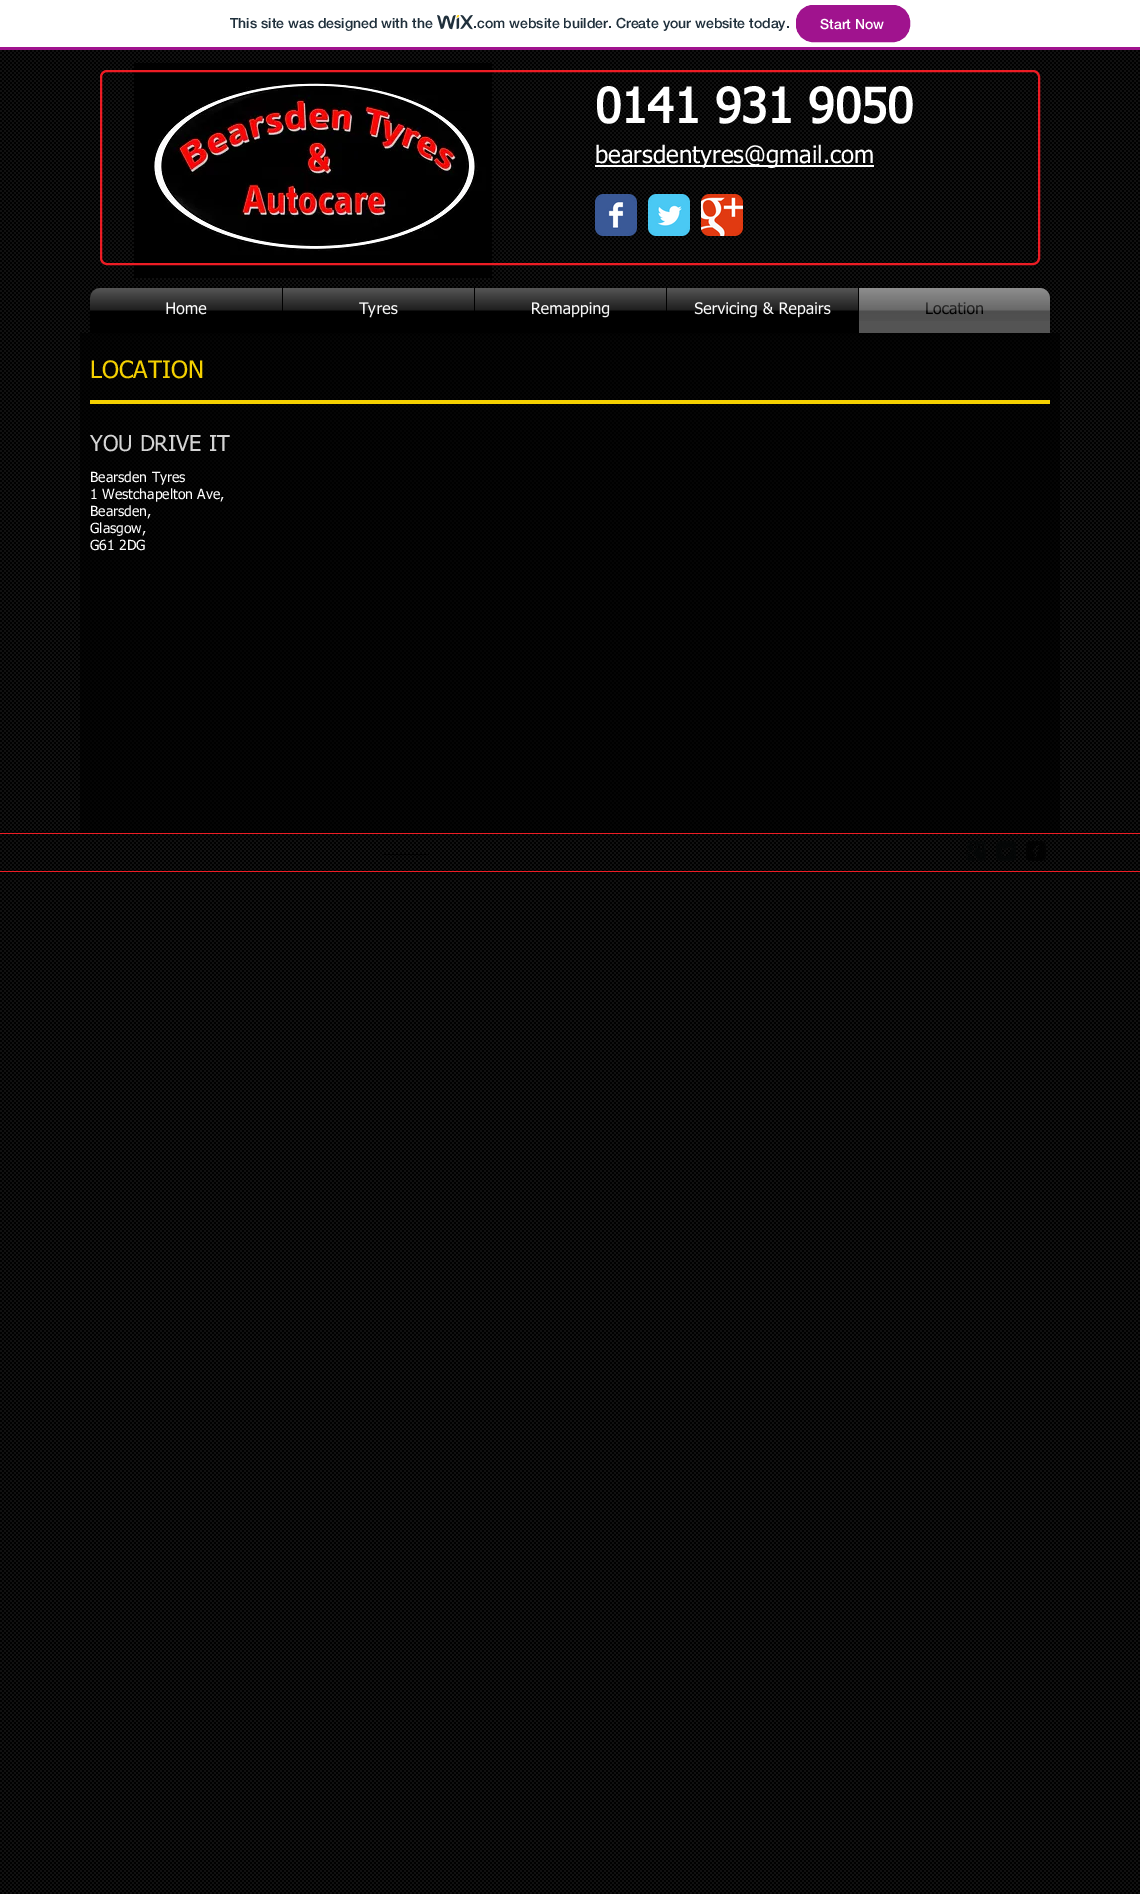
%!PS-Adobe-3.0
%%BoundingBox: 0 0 1140 1894
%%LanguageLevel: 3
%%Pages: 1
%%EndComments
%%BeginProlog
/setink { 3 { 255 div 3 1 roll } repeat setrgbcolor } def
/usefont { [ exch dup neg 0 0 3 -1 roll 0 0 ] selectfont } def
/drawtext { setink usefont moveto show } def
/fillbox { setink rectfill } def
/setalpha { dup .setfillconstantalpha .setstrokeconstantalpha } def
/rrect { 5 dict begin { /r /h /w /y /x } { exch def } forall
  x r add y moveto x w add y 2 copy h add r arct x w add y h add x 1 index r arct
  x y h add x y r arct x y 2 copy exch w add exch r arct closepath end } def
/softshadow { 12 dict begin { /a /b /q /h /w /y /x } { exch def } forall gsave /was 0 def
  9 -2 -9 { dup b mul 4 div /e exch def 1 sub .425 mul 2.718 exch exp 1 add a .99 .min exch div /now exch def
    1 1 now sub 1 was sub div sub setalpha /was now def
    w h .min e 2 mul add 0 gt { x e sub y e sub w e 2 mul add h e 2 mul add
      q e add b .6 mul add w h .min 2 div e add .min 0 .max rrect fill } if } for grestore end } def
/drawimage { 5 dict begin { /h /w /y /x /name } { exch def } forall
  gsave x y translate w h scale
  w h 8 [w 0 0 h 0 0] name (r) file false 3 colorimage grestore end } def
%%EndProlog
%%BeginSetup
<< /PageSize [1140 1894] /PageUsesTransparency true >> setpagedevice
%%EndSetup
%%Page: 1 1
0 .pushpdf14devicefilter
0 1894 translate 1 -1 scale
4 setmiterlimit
0 0 1140 1894 255 255 255 fillbox
0 47 1140 3 160 19 142 fillbox
(This site was designed with the) 230 28 /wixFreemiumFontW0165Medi-Medium 14 32 48 60 drawtext
(assets/img1.rgb) 437 15 36 15 drawimage
(.com website builder. Create your website today.) 473 28 /wixFreemiumFontW0165Medi-Medium 14 32 48 60 drawtext
160 19 142 setink
796.5 5.5 113 36 16.5 rrect gsave fill grestore
stroke
(Start Now) 820 29 /wixFreemiumFontW0165Medi-Medium 14 255 255 255 drawtext
(assets/img2.rgb) 0 50 1140 1844 drawimage
(assets/img3.rgb) 134 63 358 215 drawimage
237 28 36 setink
2 setlinewidth
101 71 938 193 6 rrect stroke
(0141 931 9050) 595 123 /tahoma-Bold 48 255 255 255 drawtext
595 165 279 2 255 255 255 fillbox
(bearsdentyres@gmail.com) 595 163 /tahoma-Regular 24 255 255 255 drawtext
(assets/img4.rgb) 595 194 42 42 drawimage
(assets/img5.rgb) 648 194 42 42 drawimage
(assets/img6.rgb) 701 194 42 42 drawimage
0 0 0 setink
90 289 960 45 10 2 0.6 softshadow
(assets/img7.rgb) 90 288 960 10 drawimage
100 288 moveto 282 288 lineto 282 333 lineto 90 333 lineto 90 298 lineto 90 292.5 94.5 288 100 288 curveto closepath fill
(Home) 165 314 /tahoma-Regular 16 255 255 255 drawtext
(assets/img8.rgb) 90 288 192 26 drawimage
282 288 576 45 0 0 0 fillbox
(Tyres) 359 314 /tahoma-Regular 16 255 255 255 drawtext
(assets/img9.rgb) 283 288 191 29 drawimage
(Remapping) 531 314 /tahoma-Regular 16 255 255 255 drawtext
(assets/img10.rgb) 475 288 191 30 drawimage
(Servicing & Repairs) 694 314 /tahoma-Regular 16 255 255 255 drawtext
(assets/img11.rgb) 667 288 191 30 drawimage
84 84 84 setink
858 288 moveto 1040 288 lineto 1045.5 288 1050 292.5 1050 298 curveto 1050 333 lineto 858 333 lineto closepath fill
858 288 1 45 0 0 0 fillbox
(Location) 925 314 /tahoma-Regular 16 0 0 0 drawtext
(assets/img12.rgb) 859 288 191 33 drawimage
0.7 setalpha
80 333 980 500 0 0 0 fillbox
1 setalpha
(LOCATION) 90 378 /tahoma-Regular 24 244 208 0 drawtext
90 400 960 4 244 208 0 fillbox
(YOU DRIVE IT) 90 451 /tahoma-Regular 22 212 212 212 drawtext
(Bearsden Tyres) 90 482 /tahoma-Regular 14 255 255 255 drawtext
(1 Westchapelton Ave,) 90 499 /tahoma-Regular 14 255 255 255 drawtext
(Bearsden,) 90 516 /tahoma-Regular 14 255 255 255 drawtext
(Glasgow,) 90 533 /tahoma-Regular 14 255 255 255 drawtext
(G61 2DG) 90 550 /tahoma-Regular 14 255 255 255 drawtext
gsave
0 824 moveto 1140 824 lineto 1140 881 lineto 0 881 lineto closepath 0 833 moveto 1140 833 lineto 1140 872 lineto 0 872 lineto closepath eoclip newpath
0 0 0 setink
0 833 1140 39 0 2.5 0.7 softshadow
grestore
0 833 1140 1 237 28 36 fillbox
0 871 1140 1 237 28 36 fillbox
384 854 45 1 0 0 0 fillbox
(assets/img13.rgb) 966 841 20 20 drawimage
(assets/img14.rgb) 996 841 20 20 drawimage
(assets/img15.rgb) 1026 841 20 20 drawimage
.poppdf14devicefilter showpage
%%EOF
